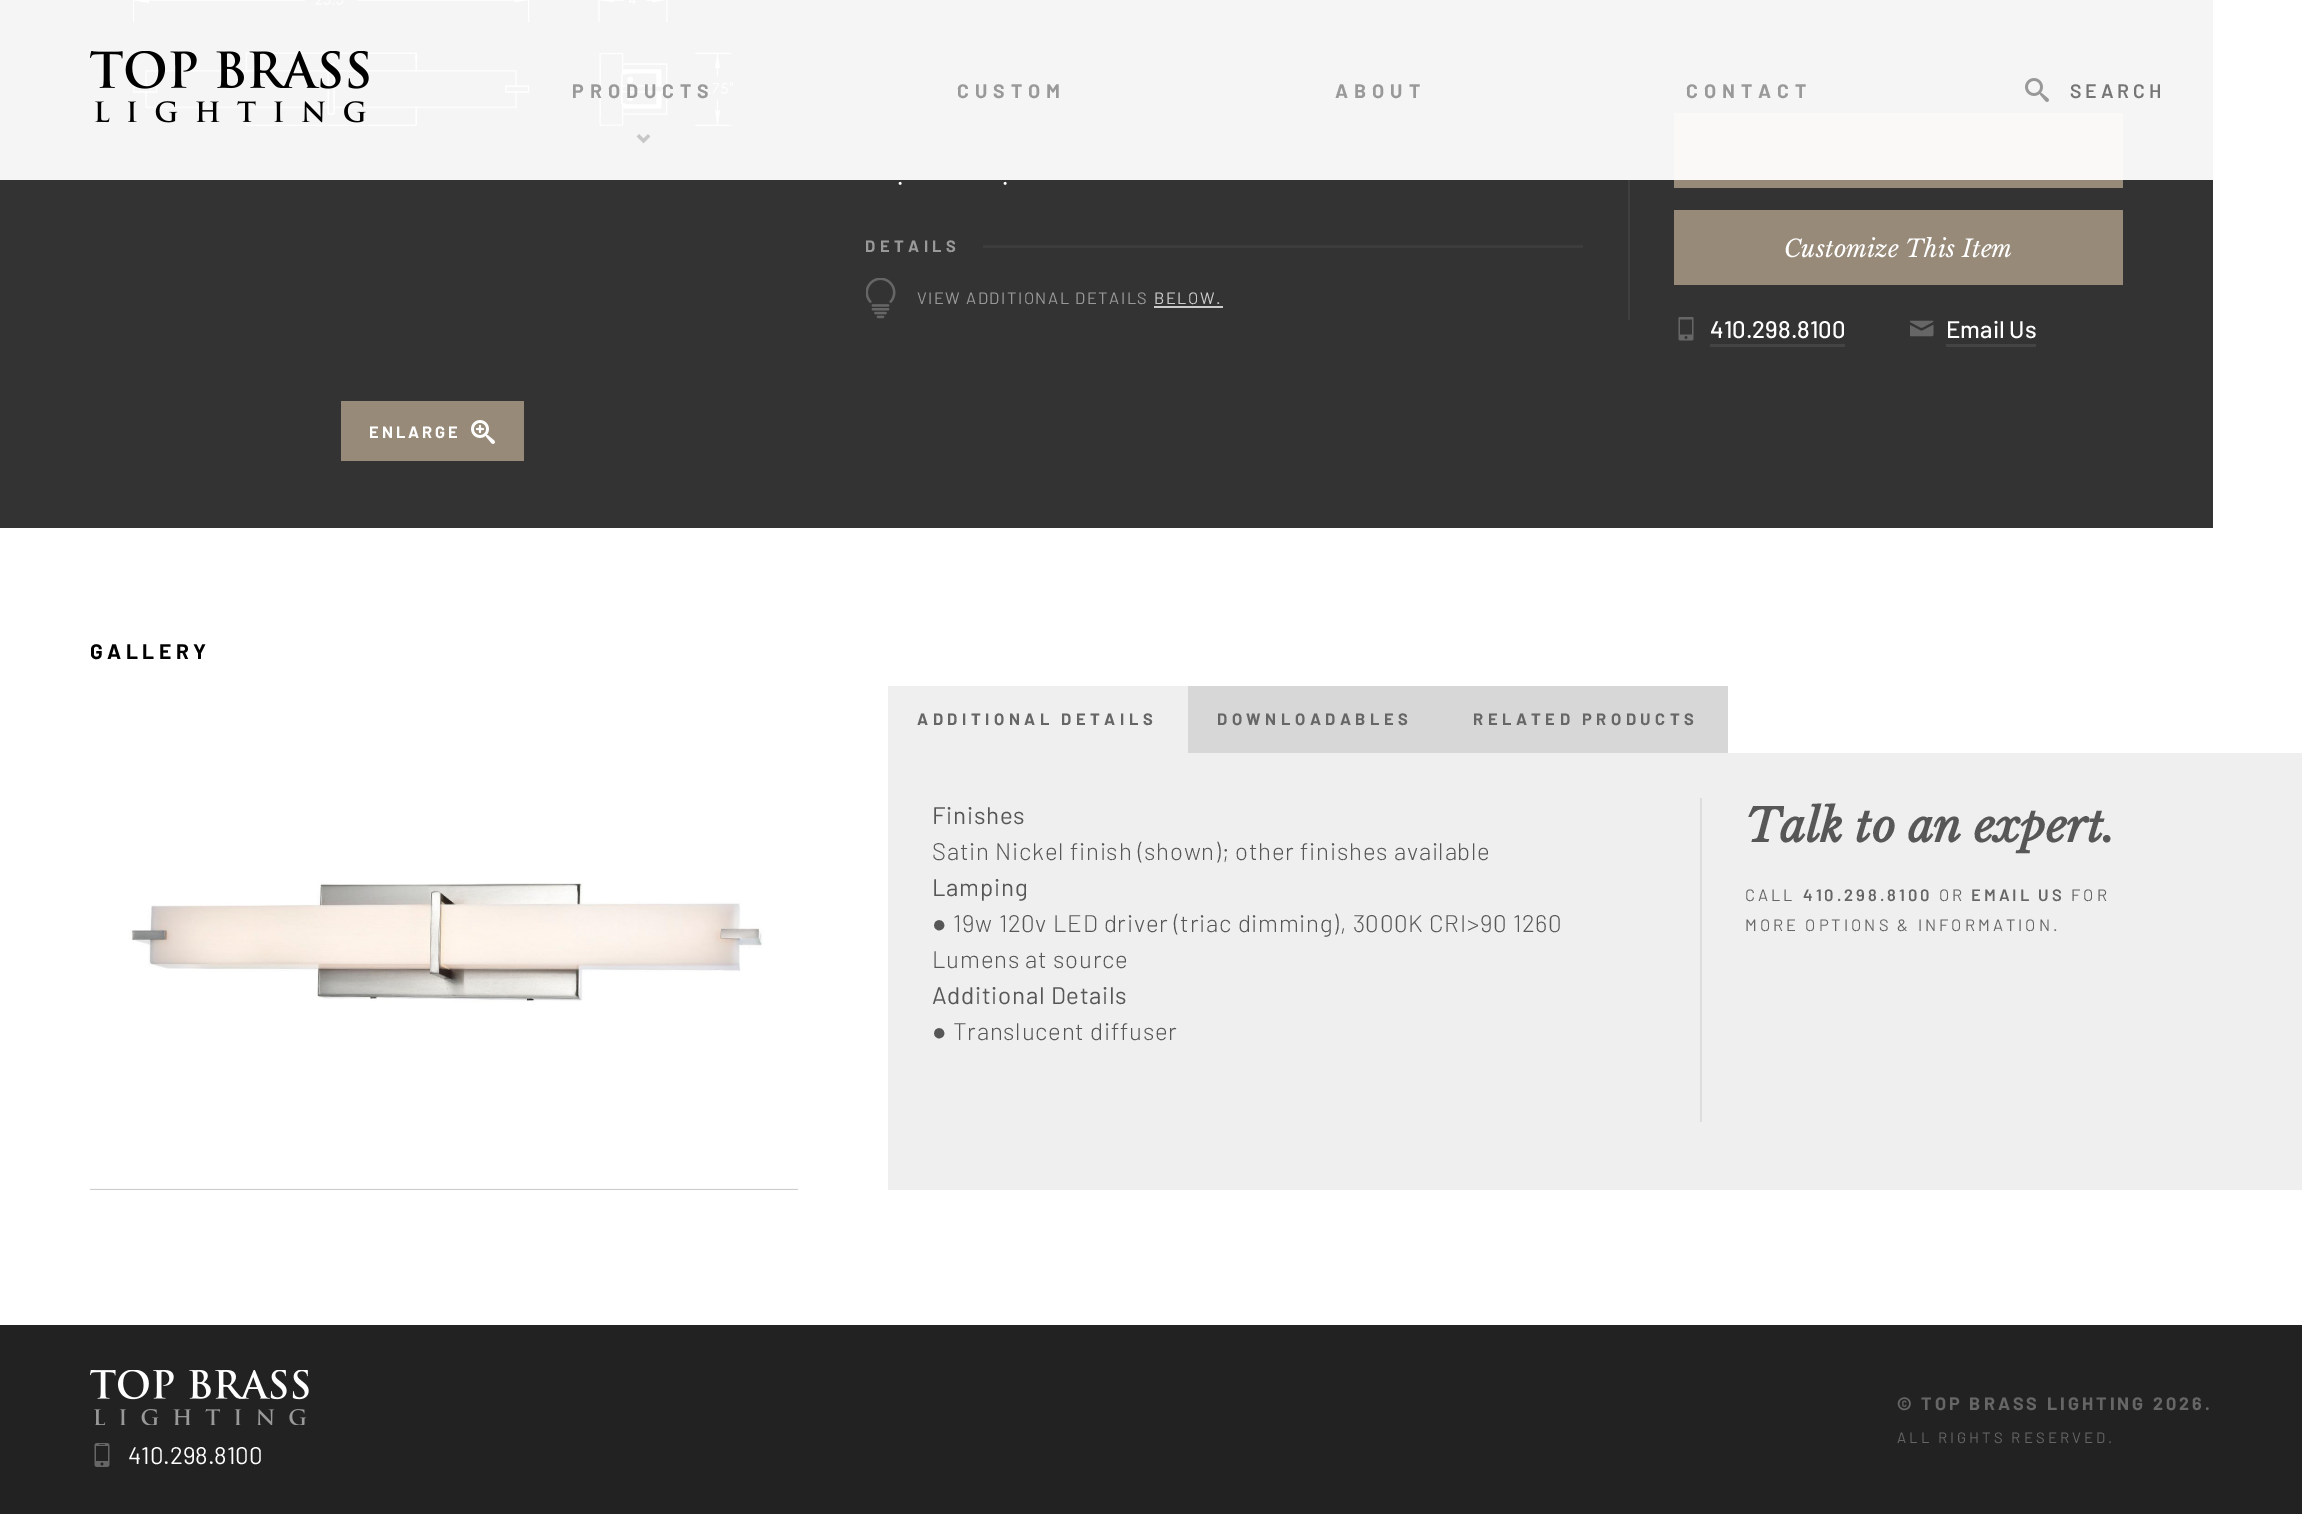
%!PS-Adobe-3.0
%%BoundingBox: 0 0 2302 1514
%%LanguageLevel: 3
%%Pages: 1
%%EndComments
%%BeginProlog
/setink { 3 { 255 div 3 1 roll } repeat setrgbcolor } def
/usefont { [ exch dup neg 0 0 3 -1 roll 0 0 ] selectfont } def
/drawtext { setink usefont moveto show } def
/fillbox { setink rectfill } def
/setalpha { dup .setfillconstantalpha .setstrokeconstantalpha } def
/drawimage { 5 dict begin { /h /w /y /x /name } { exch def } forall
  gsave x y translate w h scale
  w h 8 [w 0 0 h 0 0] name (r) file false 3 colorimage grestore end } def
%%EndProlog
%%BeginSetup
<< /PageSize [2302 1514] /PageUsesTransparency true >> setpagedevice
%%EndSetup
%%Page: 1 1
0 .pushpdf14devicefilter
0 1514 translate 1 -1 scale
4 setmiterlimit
0 0 2302 1514 255 255 255 fillbox
0 0 2213 528 51 51 51 fillbox
1628 113 2 207 63 63 63 fillbox
1025 122 558 3 60 60 60 fillbox
1674 113 449 75 151 138 121 fillbox
(assets/img7.rgb) 133 0 601 127 drawimage
0.95 setalpha
0 0 2213 180 255 255 255 fillbox
1 setalpha
(assets/img1.rgb) 90 51 279 72 drawimage
/Barlow-Bold 19.5 usefont
153 153 153 setink
572 98 moveto 6 0 (PRODUCTS) ashow
(assets/img2.rgb) 636 134 14 10 drawimage
957 98 moveto 6 0 (CUSTOM) ashow
1335 98 moveto 6 0 (ABOUT) ashow
1686 98 moveto 6 0 (CONTACT) ashow
(assets/img3.rgb) 2025 78 24 24 drawimage
(S E A R C H) 2070 98 /Barlow-SemiBold 19.5 117 117 117 drawtext
(.) 896 185 /Barlow-Light 30 255 255 255 drawtext
(.) 1001 185 /Barlow-Light 30 255 255 255 drawtext
/Barlow-Bold 16.5 usefont
153 153 153 setink
865 252 moveto 4.5 0 (DETAILS) ashow
983 245 600 3 60 60 60 fillbox
(assets/img4.rgb) 866 278 30 41 drawimage
/Barlow-Regular 16.5 usefont
153 153 153 setink
917 304 moveto 1.5 0 (VIEW ADDITIONAL DETAILS) ashow
204 204 204 setink
1154 304 moveto 1.5 0 (BELOW.) ashow
1154 306 69 2 204 204 204 fillbox
1674 210 449 75 151 138 121 fillbox
(Customize This Item) 1784 257 /LibreBaskerville-Italic 24 255 255 255 drawtext
(assets/img5.rgb) 1678 317 16 24 drawimage
(410.298.8100) 1710 338 /Barlow-Medium 24 255 255 255 drawtext
1710 344 135 3 68 68 68 fillbox
(assets/img6.rgb) 1910 320 24 17 drawimage
(Email Us) 1946 338 /Barlow-Medium 24 255 255 255 drawtext
1946 344 90 3 68 68 68 fillbox
341 401 183 60 151 138 121 fillbox
/Barlow-Bold 16.5 usefont
255 255 255 setink
369 438 moveto 3 0 (ENLARGE) ashow
(assets/img8.rgb) 471 420 24 24 drawimage
/Barlow-Bold 21 usefont
0 0 0 setink
90 659 moveto 4.5 0 (GALLERY) ashow
90 1188 708 2 204 204 204 fillbox
(assets/img9.rgb) 90 686 708 503 drawimage
888 686 300 67 239 239 239 fillbox
/Barlow-Bold 16.5 usefont
102 102 102 setink
917 725 moveto 4.5 0 (ADDITIONAL DETAILS) ashow
1188 686 540 67 215 215 215 fillbox
102 102 102 setink
1217 725 moveto 4.5 0 (DOWNLOADABLES) ashow
1473 725 moveto 4.5 0 (RELATED PRODUCTS) ashow
888 753 1414 437 239 239 239 fillbox
1700 798 2 324 221 221 221 fillbox
/Barlow-Regular 24 usefont
87 87 87 setink
932 824 moveto 0.75 0 (Finishes) ashow
/Barlow-Light 24 usefont
932 860 moveto 0.75 0 (Satin Nickel finish \(shown\); other finishes available) ashow
/Barlow-Regular 24 usefont
932 896 moveto 0.75 0 (Lamping) ashow
/LiberationSans-Regular 24 usefont
932 932 moveto 0.75 0 (●) ashow
/Barlow-Light 24 usefont
953 932 moveto 0.75 0 (19w 120v LED driver \(triac dimming\), 3000K CRI>90 1260) ashow
932 968 moveto 0.75 0 (Lumens at source) ashow
/Barlow-Regular 24 usefont
932 1004 moveto 0.75 0 (Additional Details) ashow
/LiberationSans-Regular 24 usefont
932 1040 moveto 0.75 0 (●) ashow
/Barlow-Light 24 usefont
953 1040 moveto 0.75 0 (Translucent diffuser) ashow
(Talk to an expert.) 1745 842 /LibreBaskerville-BoldItalic 45 87 87 87 drawtext
/Barlow-Regular 16.5 usefont
102 102 102 setink
1745 901 moveto 3 0 (CALL) ashow
/Barlow-SemiBold 16.5 usefont
1803 901 moveto 3 0 (410.298.8100) ashow
/Barlow-Regular 16.5 usefont
1939 901 moveto 3 0 (OR) ashow
/Barlow-SemiBold 16.5 usefont
1971 901 moveto 3 0 (EMAIL US) ashow
/Barlow-Regular 16.5 usefont
2071 901 moveto 3 0 (FOR) ashow
1745 931 moveto 3 0 (MORE OPTIONS & INFORMATION.) ashow
0 1325 2302 189 34 34 34 fillbox
/Barlow-Bold 18 usefont
102 102 102 setink
1897 1410 moveto 3 0 (© TOP BRASS LIGHTING 2026.) ashow
/Barlow-Regular 15 usefont
1897 1443 moveto 3 0 (ALL RIGHTS RESERVED.) ashow
(assets/img10.rgb) 90 1370 219 55 drawimage
(assets/img11.rgb) 94 1443 16 24 drawimage
(410.298.8100) 128 1464 /Barlow-Regular 24 255 255 255 drawtext
.poppdf14devicefilter showpage
%%EOF
